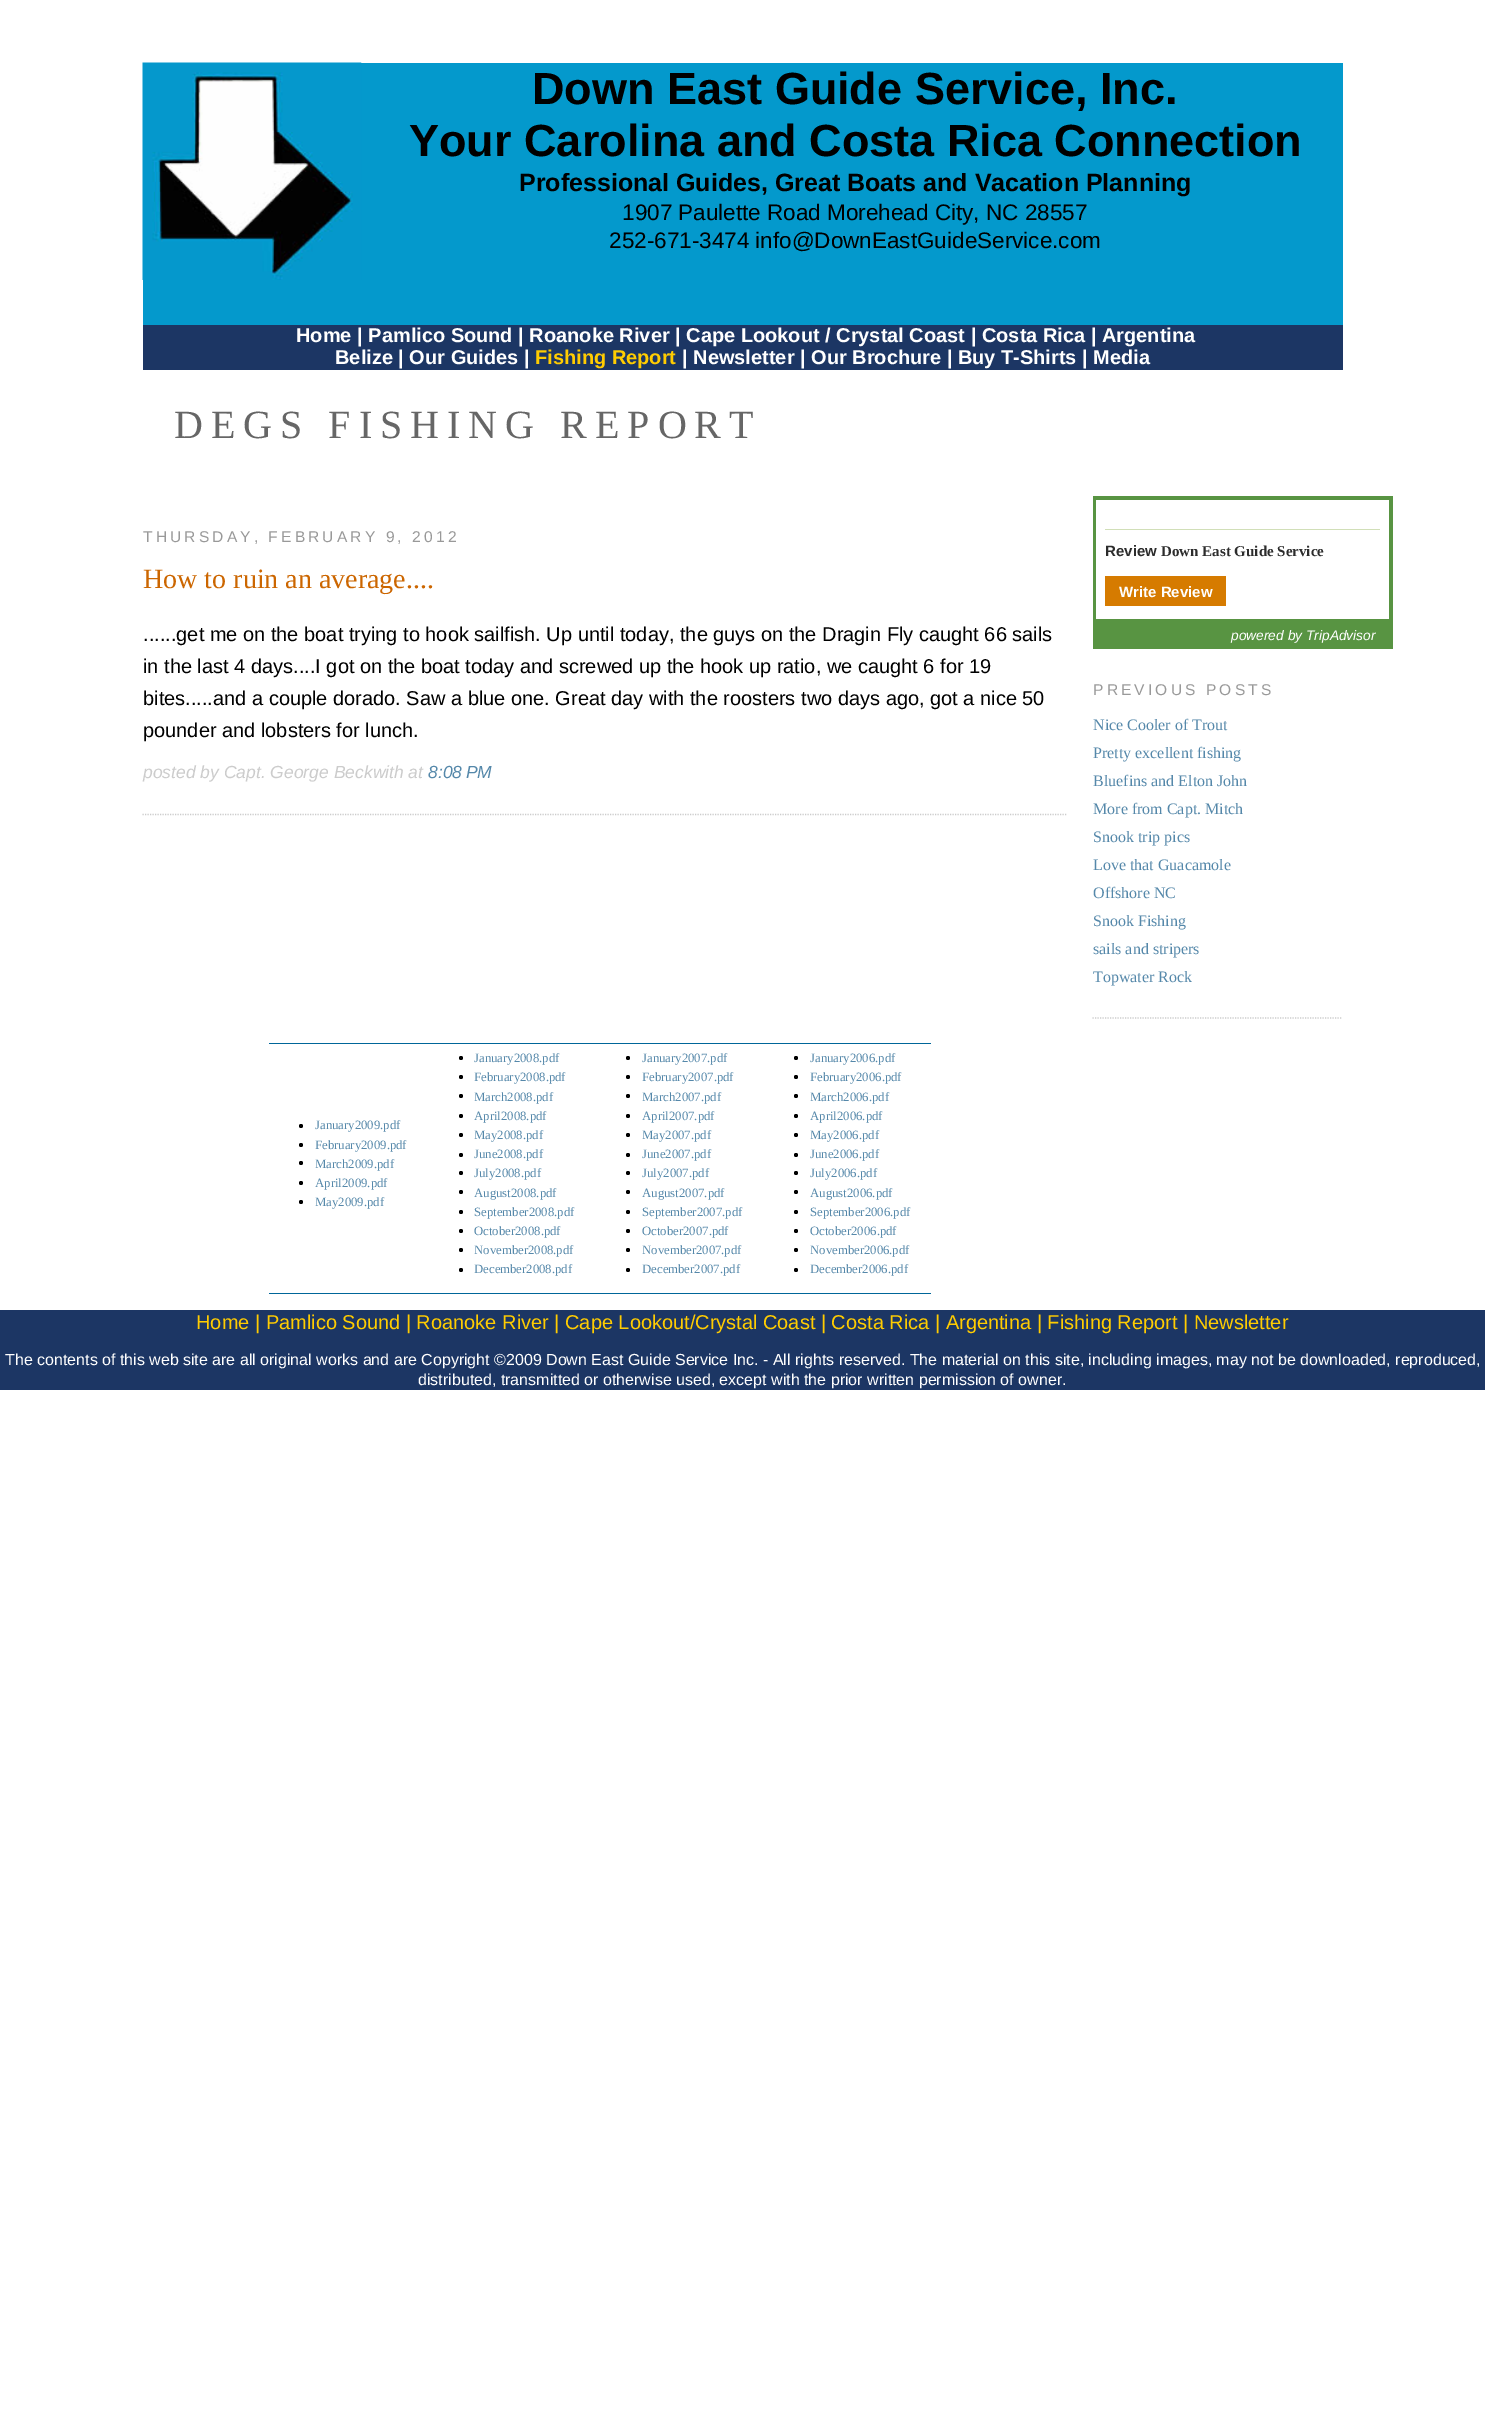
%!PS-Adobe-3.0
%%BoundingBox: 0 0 1485 2432
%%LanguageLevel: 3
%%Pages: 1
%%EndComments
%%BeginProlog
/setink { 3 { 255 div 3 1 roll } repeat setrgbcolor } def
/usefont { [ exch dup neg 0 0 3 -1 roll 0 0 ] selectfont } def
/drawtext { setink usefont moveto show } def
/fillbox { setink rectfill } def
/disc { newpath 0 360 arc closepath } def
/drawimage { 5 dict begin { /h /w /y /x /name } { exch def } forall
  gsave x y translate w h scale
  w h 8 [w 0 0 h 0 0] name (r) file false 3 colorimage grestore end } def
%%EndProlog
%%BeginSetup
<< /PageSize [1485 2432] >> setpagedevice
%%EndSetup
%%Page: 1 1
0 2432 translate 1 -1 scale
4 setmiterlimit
0 0 1485 2432 255 255 255 fillbox
143 63 1200 262 4 153 204 fillbox
(assets/img1.rgb) 142 62 220 218 drawimage
(Down East Guide Service, Inc.) 532 104 /LiberationSans-Bold 45 0 0 0 drawtext
(Your Carolina and Costa Rica Connection) 409 156 /LiberationSans-Bold 45 0 0 0 drawtext
(Professional Guides, Great Boats and Vacation Planning) 519 191 /LiberationSans-Bold 25 0 0 0 drawtext
(1907 Paulette Road Morehead City, NC 28557) 622 220 /LiberationSans-Regular 22.5 0 0 0 drawtext
(252-671-3474 info@DownEastGuideService.com) 609 248 /LiberationSans-Regular 22.5 0 0 0 drawtext
143 325 1200 45 28 54 100 fillbox
(Home | Pamlico Sound | Roanoke River | Cape Lookout / Crystal Coast | Costa Rica | Argentina) 296 342 /LiberationSans-Bold 20 255 255 255 drawtext
(Belize | Our Guides |) 335 364 /LiberationSans-Bold 20 255 255 255 drawtext
(Fishing Report) 535 364 /LiberationSans-Bold 20 255 204 1 drawtext
(| Newsletter | Our Brochure | Buy T-Shirts | Media) 682 364 /LiberationSans-Bold 20 255 255 255 drawtext
/LiberationSerif-Regular 40 usefont
102 102 102 setink
174 438 moveto 8 0 (DEGS FISHING REPORT) ashow
/LiberationSans-Regular 15.6 usefont
153 153 153 setink
143 542 moveto 3.1 0 (THURSDAY, FEBRUARY 9, 2012) ashow
204 204 204 setink
1.2 setlinewidth
[1.25 1.25] 0 setdash
142.5 814.5 moveto 1067.5 814.5 lineto stroke
(How to ruin an average....) 143 588 /LiberationSerif-Regular 28 204 102 0 drawtext
(......get me on the boat trying to hook sailfish. Up until today, the guys on the Dragin Fly caught 66 sails) 143 641 /LiberationSans-Regular 20 0 0 0 drawtext
(in the last 4 days....I got on the boat today and screwed up the hook up ratio, we caught 6 for 19) 143 673 /LiberationSans-Regular 20 0 0 0 drawtext
(bites.....and a couple dorado. Saw a blue one. Great day with the roosters two days ago, got a nice 50) 143 705 /LiberationSans-Regular 20 0 0 0 drawtext
(pounder and lobsters for lunch.) 143 737 /LiberationSans-Regular 20 0 0 0 drawtext
(posted by Capt. George Beckwith at) 143 778 /LiberationSans-Italic 17.5 204 204 204 drawtext
(8:08 PM) 428 778 /LiberationSans-Italic 17.5 85 136 170 drawtext
1093 496 300 153 88 148 66 fillbox
1096 500 293 119 255 255 255 fillbox
1105 529 275 1 209 223 184 fillbox
(Review) 1105 556 /LiberationSans-Bold 15 44 44 44 drawtext
(Down East Guide Service) 1161 556 /LiberationSerif-Bold 15 44 44 44 drawtext
1105 576 121 30 214 123 0 fillbox
(Write Review) 1119 597 /LiberationSans-Bold 15 255 255 255 drawtext
(powered by TripAdvisor) 1231 640 /LiberationSans-Italic 13.75 255 255 255 drawtext
/LiberationSans-Regular 15.6 usefont
153 153 153 setink
1093 695 moveto 3.1 0 (PREVIOUS POSTS) ashow
204 204 204 setink
1092.5 1018 moveto 1342.5 1018 lineto stroke
(Nice Cooler of Trout) 1093 730 /LiberationSerif-Regular 16 85 136 170 drawtext
(Pretty excellent fishing) 1093 758 /LiberationSerif-Regular 16 85 136 170 drawtext
(Bluefins and Elton John) 1093 786 /LiberationSerif-Regular 16 85 136 170 drawtext
(More from Capt. Mitch) 1093 814 /LiberationSerif-Regular 16 85 136 170 drawtext
(Snook trip pics) 1093 842 /LiberationSerif-Regular 16 85 136 170 drawtext
(Love that Guacamole) 1093 870 /LiberationSerif-Regular 16 85 136 170 drawtext
(Offshore NC) 1093 898 /LiberationSerif-Regular 16 85 136 170 drawtext
(Snook Fishing) 1093 926 /LiberationSerif-Regular 16 85 136 170 drawtext
(sails and stripers) 1093 954 /LiberationSerif-Regular 16 85 136 170 drawtext
(Topwater Rock) 1093 982 /LiberationSerif-Regular 16 85 136 170 drawtext
269 1043 662 1 0 102 153 fillbox
0 0 0 setink
301 1126 2 disc fill
(January2009.pdf) 315 1129 /LiberationSerif-Regular 12.75 85 136 170 drawtext
0 0 0 setink
301 1145 2 disc fill
(February2009.pdf) 315 1149 /LiberationSerif-Regular 12.75 85 136 170 drawtext
0 0 0 setink
301 1163 2 disc fill
(March2009.pdf) 315 1168 /LiberationSerif-Regular 12.75 85 136 170 drawtext
0 0 0 setink
301 1183 2 disc fill
(April2009.pdf) 315 1187 /LiberationSerif-Regular 12.75 85 136 170 drawtext
0 0 0 setink
301 1202 2 disc fill
(May2009.pdf) 315 1206 /LiberationSerif-Regular 12.75 85 136 170 drawtext
0 0 0 setink
461 1058 2 disc fill
(January2008.pdf) 474 1062 /LiberationSerif-Regular 12.75 85 136 170 drawtext
0 0 0 setink
461 1077 2 disc fill
(February2008.pdf) 474 1081 /LiberationSerif-Regular 12.75 85 136 170 drawtext
0 0 0 setink
461 1096 2 disc fill
(March2008.pdf) 474 1101 /LiberationSerif-Regular 12.75 85 136 170 drawtext
0 0 0 setink
461 1116 2 disc fill
(April2008.pdf) 474 1120 /LiberationSerif-Regular 12.75 85 136 170 drawtext
0 0 0 setink
461 1135 2 disc fill
(May2008.pdf) 474 1139 /LiberationSerif-Regular 12.75 85 136 170 drawtext
0 0 0 setink
461 1155 2 disc fill
(June2008.pdf) 474 1158 /LiberationSerif-Regular 12.75 85 136 170 drawtext
0 0 0 setink
461 1173 2 disc fill
(July2008.pdf) 474 1177 /LiberationSerif-Regular 12.75 85 136 170 drawtext
0 0 0 setink
461 1192 2 disc fill
(August2008.pdf) 474 1197 /LiberationSerif-Regular 12.75 85 136 170 drawtext
0 0 0 setink
461 1212 2 disc fill
(September2008.pdf) 474 1216 /LiberationSerif-Regular 12.75 85 136 170 drawtext
0 0 0 setink
461 1231 2 disc fill
(October2008.pdf) 474 1235 /LiberationSerif-Regular 12.75 85 136 170 drawtext
0 0 0 setink
461 1250 2 disc fill
(November2008.pdf) 474 1254 /LiberationSerif-Regular 12.75 85 136 170 drawtext
0 0 0 setink
461 1270 2 disc fill
(December2008.pdf) 474 1273 /LiberationSerif-Regular 12.75 85 136 170 drawtext
0 0 0 setink
628 1058 2 disc fill
(January2007.pdf) 642 1062 /LiberationSerif-Regular 12.75 85 136 170 drawtext
0 0 0 setink
628 1077 2 disc fill
(February2007.pdf) 642 1081 /LiberationSerif-Regular 12.75 85 136 170 drawtext
0 0 0 setink
628 1096 2 disc fill
(March2007.pdf) 642 1101 /LiberationSerif-Regular 12.75 85 136 170 drawtext
0 0 0 setink
628 1116 2 disc fill
(April2007.pdf) 642 1120 /LiberationSerif-Regular 12.75 85 136 170 drawtext
0 0 0 setink
628 1135 2 disc fill
(May2007.pdf) 642 1139 /LiberationSerif-Regular 12.75 85 136 170 drawtext
0 0 0 setink
628 1155 2 disc fill
(June2007.pdf) 642 1158 /LiberationSerif-Regular 12.75 85 136 170 drawtext
0 0 0 setink
628 1173 2 disc fill
(July2007.pdf) 642 1177 /LiberationSerif-Regular 12.75 85 136 170 drawtext
0 0 0 setink
628 1192 2 disc fill
(August2007.pdf) 642 1197 /LiberationSerif-Regular 12.75 85 136 170 drawtext
0 0 0 setink
628 1212 2 disc fill
(September2007.pdf) 642 1216 /LiberationSerif-Regular 12.75 85 136 170 drawtext
0 0 0 setink
628 1231 2 disc fill
(October2007.pdf) 642 1235 /LiberationSerif-Regular 12.75 85 136 170 drawtext
0 0 0 setink
628 1250 2 disc fill
(November2007.pdf) 642 1254 /LiberationSerif-Regular 12.75 85 136 170 drawtext
0 0 0 setink
628 1270 2 disc fill
(December2007.pdf) 642 1273 /LiberationSerif-Regular 12.75 85 136 170 drawtext
269 1293 662 1 0 102 153 fillbox
0 0 0 setink
796 1058 2 disc fill
(January2006.pdf) 810 1062 /LiberationSerif-Regular 12.75 85 136 170 drawtext
0 0 0 setink
796 1077 2 disc fill
(February2006.pdf) 810 1081 /LiberationSerif-Regular 12.75 85 136 170 drawtext
0 0 0 setink
796 1096 2 disc fill
(March2006.pdf) 810 1101 /LiberationSerif-Regular 12.75 85 136 170 drawtext
0 0 0 setink
796 1116 2 disc fill
(April2006.pdf) 810 1120 /LiberationSerif-Regular 12.75 85 136 170 drawtext
0 0 0 setink
796 1135 2 disc fill
(May2006.pdf) 810 1139 /LiberationSerif-Regular 12.75 85 136 170 drawtext
0 0 0 setink
796 1155 2 disc fill
(June2006.pdf) 810 1158 /LiberationSerif-Regular 12.75 85 136 170 drawtext
0 0 0 setink
796 1173 2 disc fill
(July2006.pdf) 810 1177 /LiberationSerif-Regular 12.75 85 136 170 drawtext
0 0 0 setink
796 1192 2 disc fill
(August2006.pdf) 810 1197 /LiberationSerif-Regular 12.75 85 136 170 drawtext
0 0 0 setink
796 1212 2 disc fill
(September2006.pdf) 810 1216 /LiberationSerif-Regular 12.75 85 136 170 drawtext
0 0 0 setink
796 1231 2 disc fill
(October2006.pdf) 810 1235 /LiberationSerif-Regular 12.75 85 136 170 drawtext
0 0 0 setink
796 1250 2 disc fill
(November2006.pdf) 810 1254 /LiberationSerif-Regular 12.75 85 136 170 drawtext
0 0 0 setink
796 1270 2 disc fill
(December2006.pdf) 810 1273 /LiberationSerif-Regular 12.75 85 136 170 drawtext
0 1310 1485 80 28 54 100 fillbox
(Home | Pamlico Sound | Roanoke River | Cape Lookout/Crystal Coast | Costa Rica | Argentina | Fishing Report | Newsletter) 196 1329 /LiberationSans-Regular 20 255 204 1 drawtext
(The contents of this web site are all original works and are Copyright ©2009 Down East Guide Service Inc. - All rights reserved. The material on this site, including images, may not be downloaded, reproduced,) 5 1365 /LiberationSans-Regular 16 255 255 255 drawtext
(distributed, transmitted or otherwise used, except with the prior written permission of owner.) 418 1385 /LiberationSans-Regular 16 255 255 255 drawtext
showpage
%%EOF
